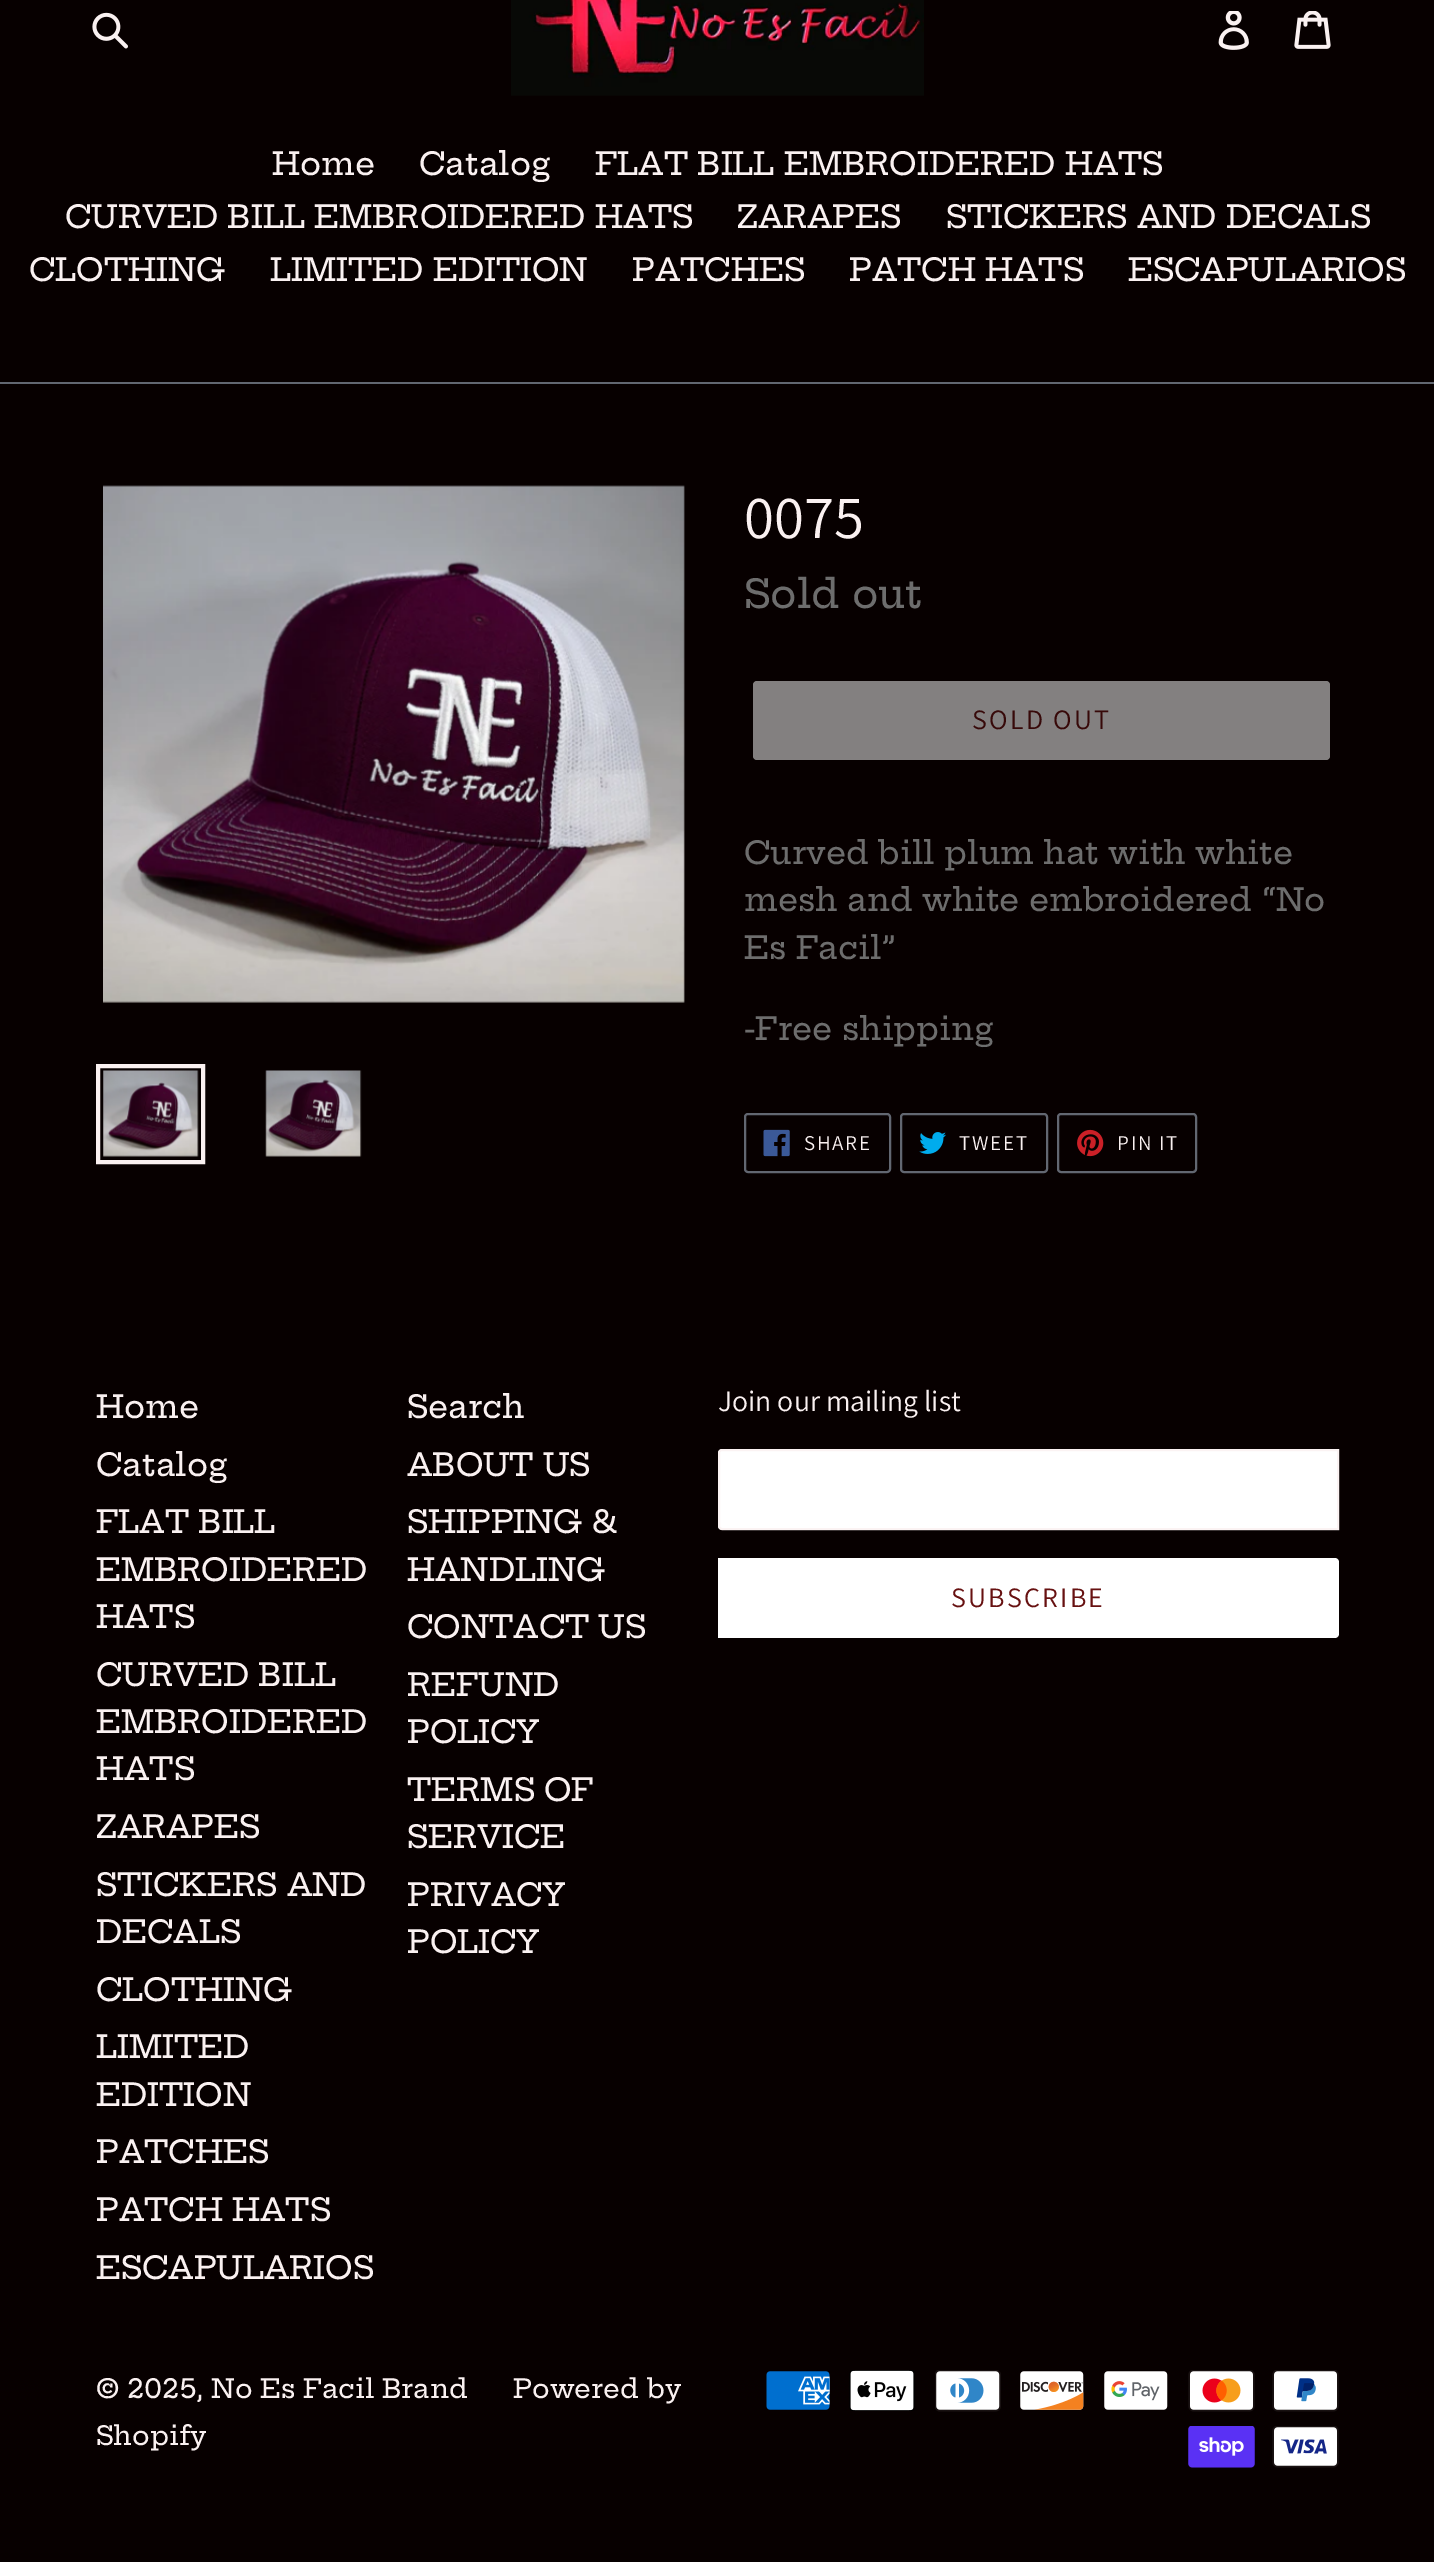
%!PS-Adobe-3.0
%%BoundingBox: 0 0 1434 2562
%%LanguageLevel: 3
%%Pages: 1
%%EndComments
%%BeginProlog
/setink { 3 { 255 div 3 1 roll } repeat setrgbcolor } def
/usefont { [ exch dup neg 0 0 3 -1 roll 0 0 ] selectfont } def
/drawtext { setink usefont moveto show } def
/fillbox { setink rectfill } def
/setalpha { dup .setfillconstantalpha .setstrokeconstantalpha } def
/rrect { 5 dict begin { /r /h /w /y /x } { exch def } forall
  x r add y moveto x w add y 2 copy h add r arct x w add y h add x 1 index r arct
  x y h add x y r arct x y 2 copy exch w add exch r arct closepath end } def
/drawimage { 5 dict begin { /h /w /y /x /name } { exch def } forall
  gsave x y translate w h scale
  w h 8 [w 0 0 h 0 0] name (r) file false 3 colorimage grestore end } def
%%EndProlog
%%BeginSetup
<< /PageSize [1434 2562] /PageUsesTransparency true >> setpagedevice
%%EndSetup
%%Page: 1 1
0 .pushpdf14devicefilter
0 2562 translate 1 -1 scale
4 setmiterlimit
0 0 1434 2562 7 0 0 fillbox
(assets/img1.rgb) 92 12 36 37 drawimage
(assets/img2.rgb) 511 0 413 96 drawimage
(assets/img3.rgb) 1218 11 31 39 drawimage
(assets/img4.rgb) 1294 11 37 38 drawimage
0 382 1434 2 98 103 113 fillbox
(Home) 272 175 /HeptaSlab-Medium 31.5 250 241 241 drawtext
(Catalog) 419 175 /HeptaSlab-Medium 31.5 250 241 241 drawtext
(FLAT BILL EMBROIDERED HATS) 595 175 /HeptaSlab-Medium 31.5 250 241 241 drawtext
(CURVED BILL EMBROIDERED HATS) 65 228 /HeptaSlab-Medium 31.5 250 241 241 drawtext
(ZARAPES) 737 228 /HeptaSlab-Medium 31.5 250 241 241 drawtext
(STICKERS AND DECALS) 946 228 /HeptaSlab-Medium 31.5 250 241 241 drawtext
(CLOTHING) 29 281 /HeptaSlab-Medium 31.5 250 241 241 drawtext
(LIMITED EDITION) 270 281 /HeptaSlab-Medium 31.5 250 241 241 drawtext
(PATCHES) 632 281 /HeptaSlab-Medium 31.5 250 241 241 drawtext
(PATCH HATS) 849 281 /HeptaSlab-Medium 31.5 250 241 241 drawtext
(ESCAPULARIOS) 1128 281 /HeptaSlab-Medium 31.5 250 241 241 drawtext
(assets/img5.rgb) 103 485 582 518 drawimage
4 setlinewidth
98 1066 105 96 rectstroke
(assets/img6.rgb) 103 1070 96 87 drawimage
(assets/img7.rgb) 265 1070 97 87 drawimage
(0075) 744 538 /Assistant-Regular 61 250 241 241 drawtext
(Sold out) 744 608 /HeptaSlab-Medium 39.5 109 109 109 drawtext
131 128 128 setink
753 681 577 79 4 rrect fill
/Assistant-Regular 28 usefont
55 9 9 setink
972 729 moveto 2.25 0 (SOLD OUT) ashow
(Curved bill plum hat with white) 744 864 /HeptaSlab-Medium 31.5 109 109 109 drawtext
(mesh and white embroidered “No) 744 911 /HeptaSlab-Medium 31.5 109 109 109 drawtext
(Es Facil”) 744 959 /HeptaSlab-Medium 31.5 109 109 109 drawtext
(-Free shipping) 744 1040 /HeptaSlab-Medium 31.5 109 109 109 drawtext
98 103 113 setink
2 setlinewidth
745 1114 145 58 3 rrect stroke
(assets/img8.rgb) 763 1129 27 28 drawimage
/Assistant-Regular 21 usefont
250 241 241 setink
804 1150 moveto 1.75 0 (SHARE) ashow
98 103 113 setink
901 1114 146 58 3 rrect stroke
(assets/img9.rgb) 919 1132 27 22 drawimage
250 241 241 setink
959 1150 moveto 1.75 0 (TWEET) ashow
98 103 113 setink
1058 1114 138 58 3 rrect stroke
(assets/img10.rgb) 1077 1129 27 28 drawimage
250 241 241 setink
1117 1150 moveto 1.75 0 (PIN IT) ashow
(Home) 96 1418 /HeptaSlab-Medium 31.5 250 241 241 drawtext
(Catalog) 96 1476 /HeptaSlab-Medium 31.5 250 241 241 drawtext
(FLAT BILL) 96 1533 /HeptaSlab-Medium 31.5 250 241 241 drawtext
(EMBROIDERED) 96 1581 /HeptaSlab-Medium 31.5 250 241 241 drawtext
(HATS) 96 1628 /HeptaSlab-Medium 31.5 250 241 241 drawtext
(CURVED BILL) 96 1686 /HeptaSlab-Medium 31.5 250 241 241 drawtext
(EMBROIDERED) 96 1733 /HeptaSlab-Medium 31.5 250 241 241 drawtext
(HATS) 96 1780 /HeptaSlab-Medium 31.5 250 241 241 drawtext
(ZARAPES) 96 1838 /HeptaSlab-Medium 31.5 250 241 241 drawtext
(STICKERS AND) 96 1896 /HeptaSlab-Medium 31.5 250 241 241 drawtext
(DECALS) 96 1943 /HeptaSlab-Medium 31.5 250 241 241 drawtext
(CLOTHING) 96 2001 /HeptaSlab-Medium 31.5 250 241 241 drawtext
(LIMITED) 96 2058 /HeptaSlab-Medium 31.5 250 241 241 drawtext
(EDITION) 96 2106 /HeptaSlab-Medium 31.5 250 241 241 drawtext
(PATCHES) 96 2163 /HeptaSlab-Medium 31.5 250 241 241 drawtext
(PATCH HATS) 96 2221 /HeptaSlab-Medium 31.5 250 241 241 drawtext
(ESCAPULARIOS) 96 2279 /HeptaSlab-Medium 31.5 250 241 241 drawtext
(Search) 407 1418 /HeptaSlab-Medium 31.5 250 241 241 drawtext
(ABOUT US) 407 1476 /HeptaSlab-Medium 31.5 250 241 241 drawtext
(SHIPPING &) 407 1533 /HeptaSlab-Medium 31.5 250 241 241 drawtext
(HANDLING) 407 1581 /HeptaSlab-Medium 31.5 250 241 241 drawtext
(CONTACT US) 407 1638 /HeptaSlab-Medium 31.5 250 241 241 drawtext
(REFUND) 407 1696 /HeptaSlab-Medium 31.5 250 241 241 drawtext
(POLICY) 407 1743 /HeptaSlab-Medium 31.5 250 241 241 drawtext
(TERMS OF) 407 1801 /HeptaSlab-Medium 31.5 250 241 241 drawtext
(SERVICE) 407 1848 /HeptaSlab-Medium 31.5 250 241 241 drawtext
(PRIVACY) 407 1906 /HeptaSlab-Medium 31.5 250 241 241 drawtext
(POLICY) 407 1953 /HeptaSlab-Medium 31.5 250 241 241 drawtext
(Join our mailing list) 718 1411 /Assistant-Regular 29.75 250 241 241 drawtext
255 255 255 setink
722 1449 moveto 1339 1449 lineto 1339 1530 lineto 722 1530 lineto 720 1530 718 1528 718 1526 curveto 718 1453 lineto 718 1451 720 1449 722 1449 curveto closepath fill
0.85 setalpha
250 241 241 setink
722 1450 moveto 1338 1450 lineto 1338 1529 lineto 722 1529 lineto 720.5 1529 719 1527.5 719 1526 curveto 719 1453 lineto 719 1451.5 720.5 1450 722 1450 curveto closepath stroke
1 setalpha
255 255 255 setink
718 1558 moveto 1335 1558 lineto 1337 1558 1339 1560 1339 1562 curveto 1339 1634 lineto 1339 1636 1337 1638 1335 1638 curveto 718 1638 lineto closepath fill
/Assistant-Regular 28 usefont
103 17 17 setink
951 1607 moveto 2.25 0 (SUBSCRIBE) ashow
(© 2025, No Es Facil Brand) 96 2398 /HeptaSlab-Medium 26.25 250 241 241 drawtext
(Powered by) 513 2398 /HeptaSlab-Medium 26.25 250 241 241 drawtext
(Shopify) 96 2445 /HeptaSlab-Medium 26.25 250 241 241 drawtext
(assets/img11.rgb) 766 2371 64 39 drawimage
(assets/img12.rgb) 849 2370 66 41 drawimage
(assets/img13.rgb) 935 2370 66 42 drawimage
(assets/img14.rgb) 1020 2371 64 39 drawimage
(assets/img15.rgb) 1104 2371 64 39 drawimage
(assets/img16.rgb) 1188 2370 67 42 drawimage
(assets/img17.rgb) 1272 2370 67 42 drawimage
(assets/img18.rgb) 1188 2426 67 42 drawimage
(assets/img19.rgb) 1272 2426 67 42 drawimage
.poppdf14devicefilter showpage
%%EOF
